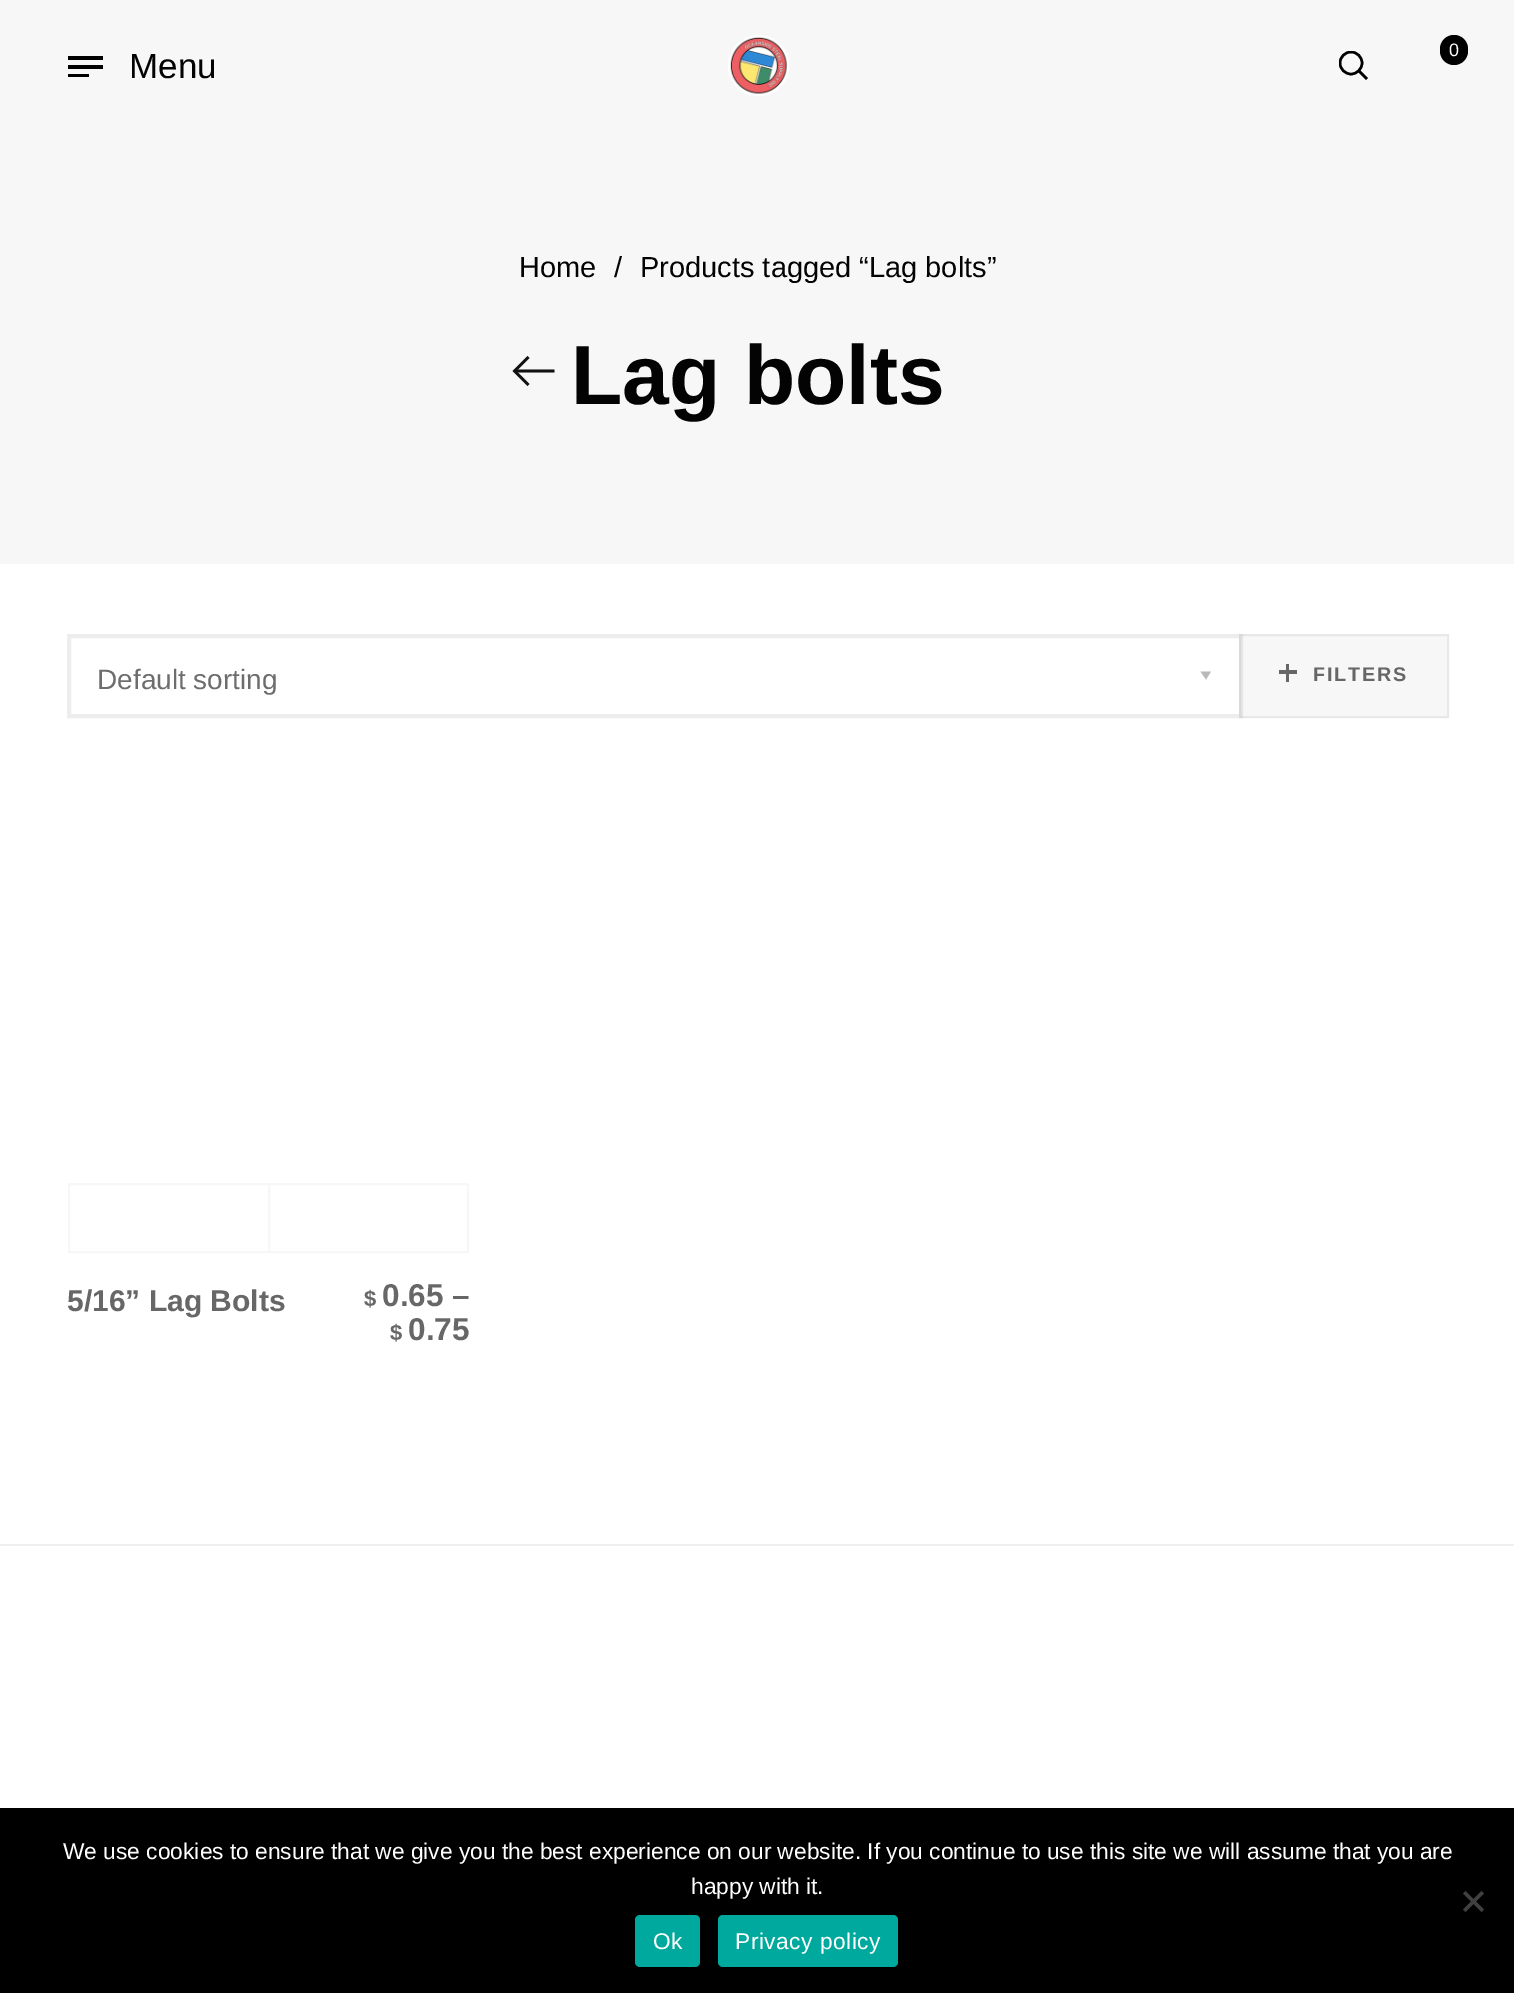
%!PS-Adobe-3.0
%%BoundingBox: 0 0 1514 1993
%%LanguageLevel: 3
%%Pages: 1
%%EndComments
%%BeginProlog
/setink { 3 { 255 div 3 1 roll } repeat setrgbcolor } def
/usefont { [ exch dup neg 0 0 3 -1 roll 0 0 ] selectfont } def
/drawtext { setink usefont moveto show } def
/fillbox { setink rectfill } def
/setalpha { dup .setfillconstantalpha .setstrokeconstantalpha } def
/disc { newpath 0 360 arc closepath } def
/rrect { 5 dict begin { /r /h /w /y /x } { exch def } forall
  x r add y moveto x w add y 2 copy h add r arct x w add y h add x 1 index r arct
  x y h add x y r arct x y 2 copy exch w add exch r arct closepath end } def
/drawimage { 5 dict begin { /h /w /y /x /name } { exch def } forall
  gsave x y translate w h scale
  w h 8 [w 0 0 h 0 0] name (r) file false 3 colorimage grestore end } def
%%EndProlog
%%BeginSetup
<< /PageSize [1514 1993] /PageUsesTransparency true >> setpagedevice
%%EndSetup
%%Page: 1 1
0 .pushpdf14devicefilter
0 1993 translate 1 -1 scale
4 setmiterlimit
0 0 1514 1993 255 255 255 fillbox
0 0 1514 564 247 247 247 fillbox
(assets/img1.rgb) 728 35 61 61 drawimage
0 0 0 setink
2.5 setlinewidth
2 setlinecap
1366 78 moveto 1359 71 lineto stroke
gsave
1339 51 30 30 rectclip
0 setlinecap
1351 63 11 disc stroke
grestore
1440 35 28 30 14 rrect fill
(0) 1449 56 /LiberationSans-Regular 18 255 255 255 drawtext
68 56 35 4 0 0 0 fillbox
68 65 35 4 0 0 0 fillbox
68 74 21 3 0 0 0 fillbox
(Menu) 129 78 /LiberationSans-Regular 35 3 3 3 drawtext
(Home) 519 277 /LiberationSans-Regular 29 3 3 3 drawtext
(/) 614 277 /LiberationSans-Regular 29 3 3 3 drawtext
(Products tagged “Lag bolts”) 640 277 /LiberationSans-Regular 29 3 3 3 drawtext
17 17 17 setink
2.8 setlinewidth
0 setlinecap
554.5 371 moveto 514.5 371 lineto stroke
2 setlinecap
527.5 384 moveto 514.5 371 lineto 527.5 358 lineto stroke
(Lag bolts) 571 404 /LiberationSans-Bold 84 3 3 3 drawtext
0 1544 1514 2 240 240 240 fillbox
185 185 185 setink
1200.5 671.5 moveto 1211 671.5 lineto 1206 679.5 lineto closepath fill
237 237 237 setink
4 setlinewidth
0 setlinecap
69 636 1172 80 rectstroke
(Default sorting) 97 689 /LiberationSans-Regular 28 109 109 109 drawtext
0.05 setalpha
1239 634 210 84 103 103 103 fillbox
0.1 setalpha
2 setlinewidth
1240 635 208 82 rectstroke
1 setalpha
1279 670 18 4 103 103 103 fillbox
1286 664 3 18 103 103 103 fillbox
/LiberationSans-Bold 19.75 usefont
1313 681 moveto 1.75 0 (FILTERS) ashow
247 247 247 setink
69 1184 200 68 rectstroke
269 1184 199 68 rectstroke
(5/16” Lag Bolts) 67 1311 /LiberationSans-Bold 30 103 103 103 drawtext
($) 364 1306 /LiberationSans-Bold 22 103 103 103 drawtext
(0.65 –) 382 1306 /LiberationSans-Bold 31.5 103 103 103 drawtext
($) 390 1340 /LiberationSans-Bold 22 103 103 103 drawtext
(0.75) 408 1340 /LiberationSans-Bold 31.5 103 103 103 drawtext
0 1808 1514 185 0 0 0 fillbox
(We use cookies to ensure that we give you the best experience on our website. If you continue to use this site we will assume that you are) 63 1859 /LiberationSans-Regular 22.75 255 255 255 drawtext
(happy with it.) 691 1894 /LiberationSans-Regular 22.75 255 255 255 drawtext
64 64 64 setink
1481.5 1891 moveto 1484 1893.5 lineto 1465.5 1912 lineto 1463 1909.5 lineto closepath fill
1463 1893.5 moveto 1465.5 1891 lineto 1484 1909.5 lineto 1481.5 1912 lineto closepath fill
0 169 157 setink
635 1915 65 52 5 rrect fill
255 255 255 setink
653 1949 moveto 0.5 0 (Ok) ashow
0 169 157 setink
718 1915 180 52 5 rrect fill
255 255 255 setink
735 1949 moveto 0.5 0 (Privacy policy) ashow
.poppdf14devicefilter showpage
%%EOF
